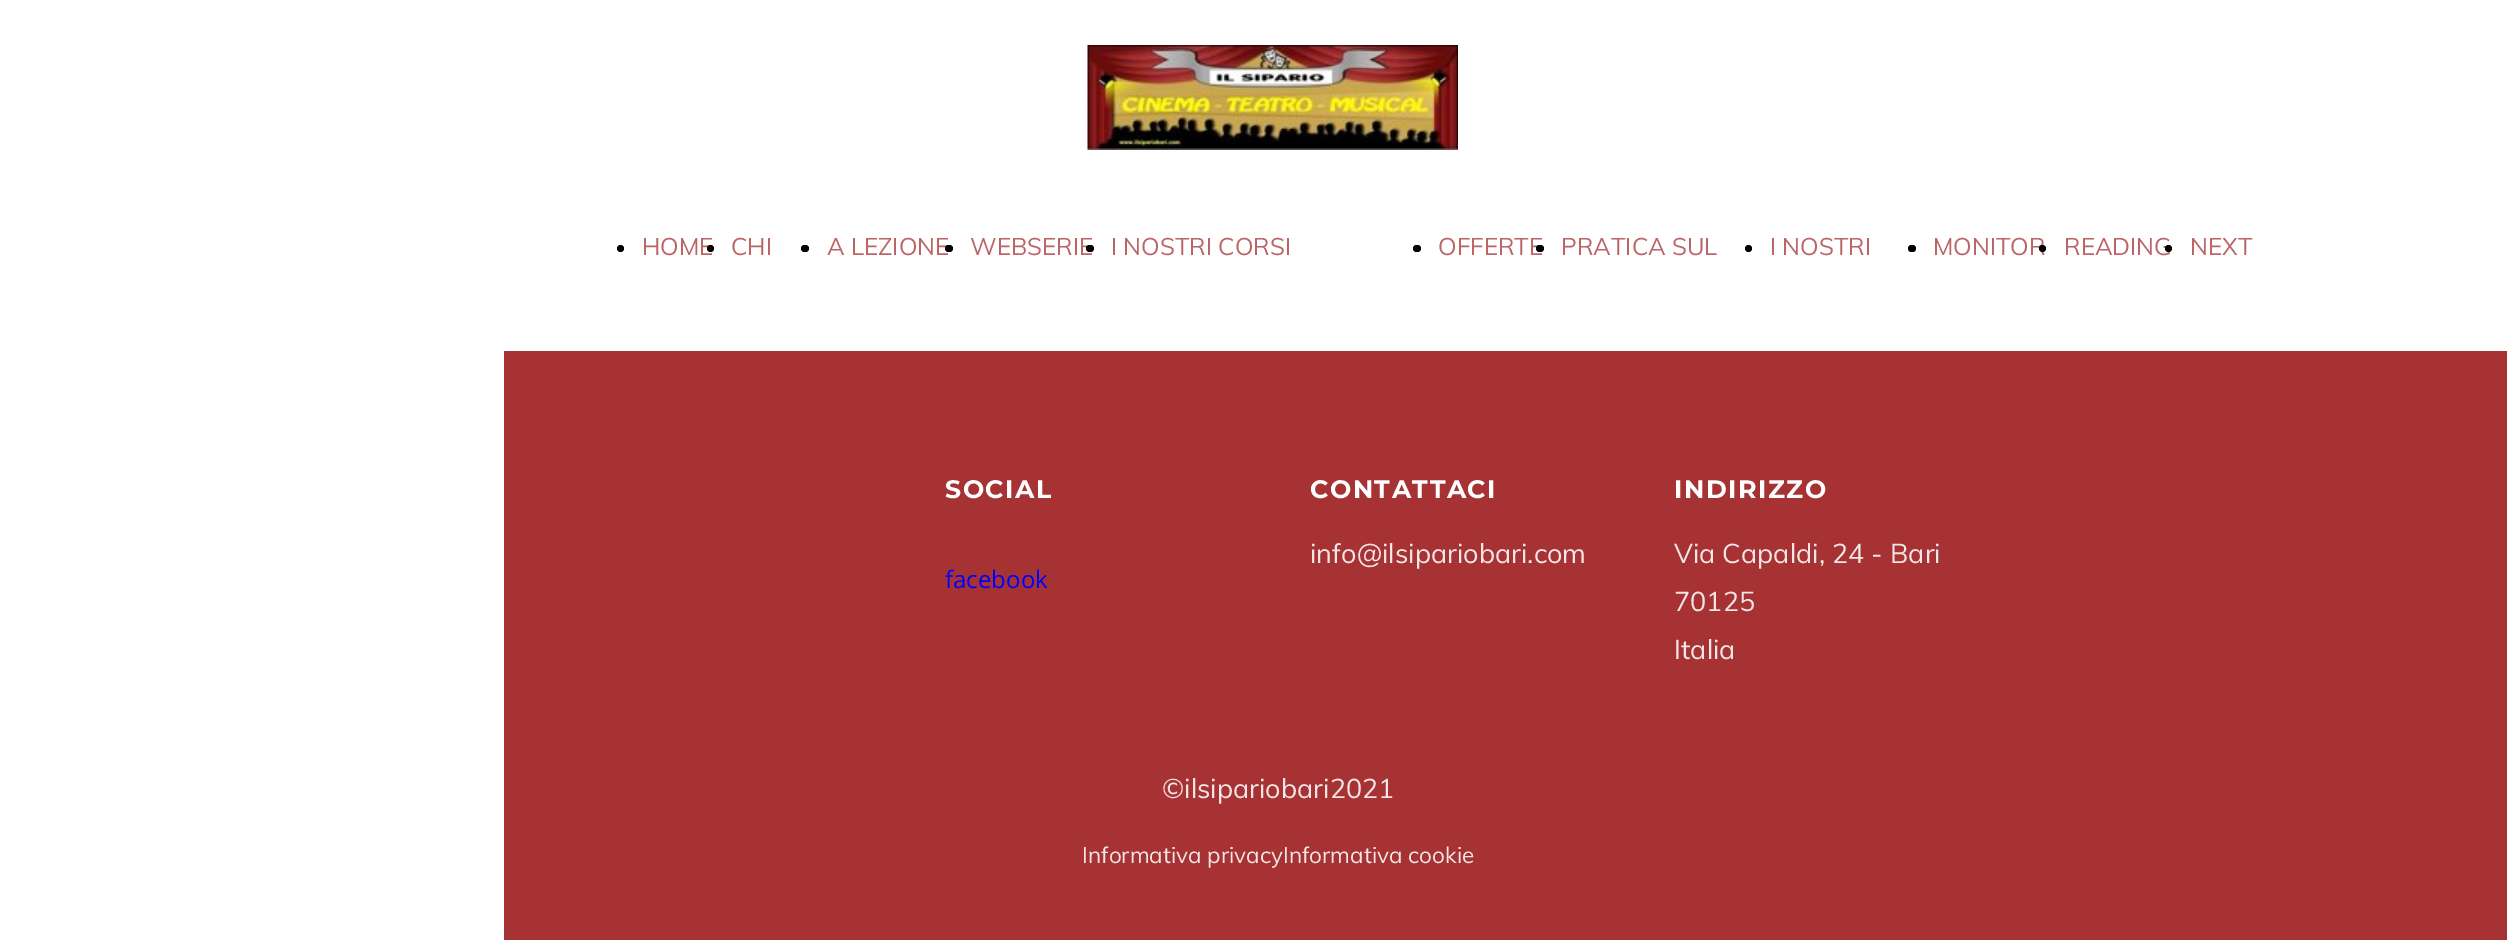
%!PS-Adobe-3.0
%%BoundingBox: 0 0 2507 940
%%LanguageLevel: 3
%%Pages: 1
%%EndComments
%%BeginProlog
/setink { 3 { 255 div 3 1 roll } repeat setrgbcolor } def
/usefont { [ exch dup neg 0 0 3 -1 roll 0 0 ] selectfont } def
/drawtext { setink usefont moveto show } def
/fillbox { setink rectfill } def
/disc { newpath 0 360 arc closepath } def
/rrect { 5 dict begin { /r /h /w /y /x } { exch def } forall
  x r add y moveto x w add y 2 copy h add r arct x w add y h add x 1 index r arct
  x y h add x y r arct x y 2 copy exch w add exch r arct closepath end } def
/drawimage { 5 dict begin { /h /w /y /x /name } { exch def } forall
  gsave x y translate w h scale
  w h 8 [w 0 0 h 0 0] name (r) file false 3 colorimage grestore end } def
%%EndProlog
%%BeginSetup
<< /PageSize [2507 940] >> setpagedevice
%%EndSetup
%%Page: 1 1
0 940 translate 1 -1 scale
4 setmiterlimit
0 0 2507 940 255 255 255 fillbox
(assets/img1.rgb) 1087 45 371 105 drawimage
0 0 0 setink
620.5 248.5 3.5 disc fill
(HOME) 642 255 /Muli-Regular 24 188 101 102 drawtext
0 0 0 setink
710.5 248.5 3.5 disc fill
(CHI) 731 255 /Muli-Regular 24 188 101 102 drawtext
0 0 0 setink
801 245 8 7 3.5 rrect fill
(A LEZIONE) 827 255 /Muli-Regular 24 188 101 102 drawtext
0 0 0 setink
945 245 8 7 3.5 rrect fill
(WEBSERIE) 970 255 /Muli-Regular 24 188 101 102 drawtext
0 0 0 setink
1086 245 8 7 3.5 rrect fill
(I NOSTRI CORSI) 1111 255 /Muli-Regular 24 188 101 102 drawtext
0 0 0 setink
1413 245 8 7 3.5 rrect fill
(OFFERTE) 1438 255 /Muli-Regular 24 188 101 102 drawtext
0 0 0 setink
1536 245 8 7 3.5 rrect fill
(PRATICA SUL) 1561 255 /Muli-Regular 24 188 101 102 drawtext
0 0 0 setink
1748.5 248.5 3.5 disc fill
(I NOSTRI) 1770 255 /Muli-Regular 24 188 101 102 drawtext
0 0 0 setink
1908 245 8 7 3.5 rrect fill
(MONITOR) 1933 255 /Muli-Regular 24 188 101 102 drawtext
0 0 0 setink
2042.5 248.5 3.5 disc fill
(READING) 2064 255 /Muli-Regular 24 188 101 102 drawtext
0 0 0 setink
2168.5 248.5 3.5 disc fill
(NEXT) 2190 255 /Muli-Regular 24 188 101 102 drawtext
504 351 2003 589 166 50 51 fillbox
/Montserrat-Bold 25.25 usefont
255 255 255 setink
945 498 moveto 1.5 0 (SOCIAL) ashow
1310 498 moveto 1.5 0 (CONTATTACI) ashow
1674 498 moveto 1.5 0 (INDIRIZZO) ashow
(facebook) 945 588 /OpenSans-Regular 24 0 0 255 drawtext
(info@ilsipariobari.com) 1310 563 /Muli-Regular 27 244 229 230 drawtext
(Via Capaldi, 24 - Bari) 1674 563 /Muli-Regular 27 244 229 230 drawtext
(70125) 1674 611 /Muli-Regular 27 244 229 230 drawtext
(Italia) 1674 659 /Muli-Regular 27 244 229 230 drawtext
(©ilsipariobari2021) 1162 798 /Muli-Regular 27 244 229 230 drawtext
(Informativa privacyInformativa cookie) 1082 863 /Muli-Regular 22.5 244 229 230 drawtext
showpage
%%EOF
